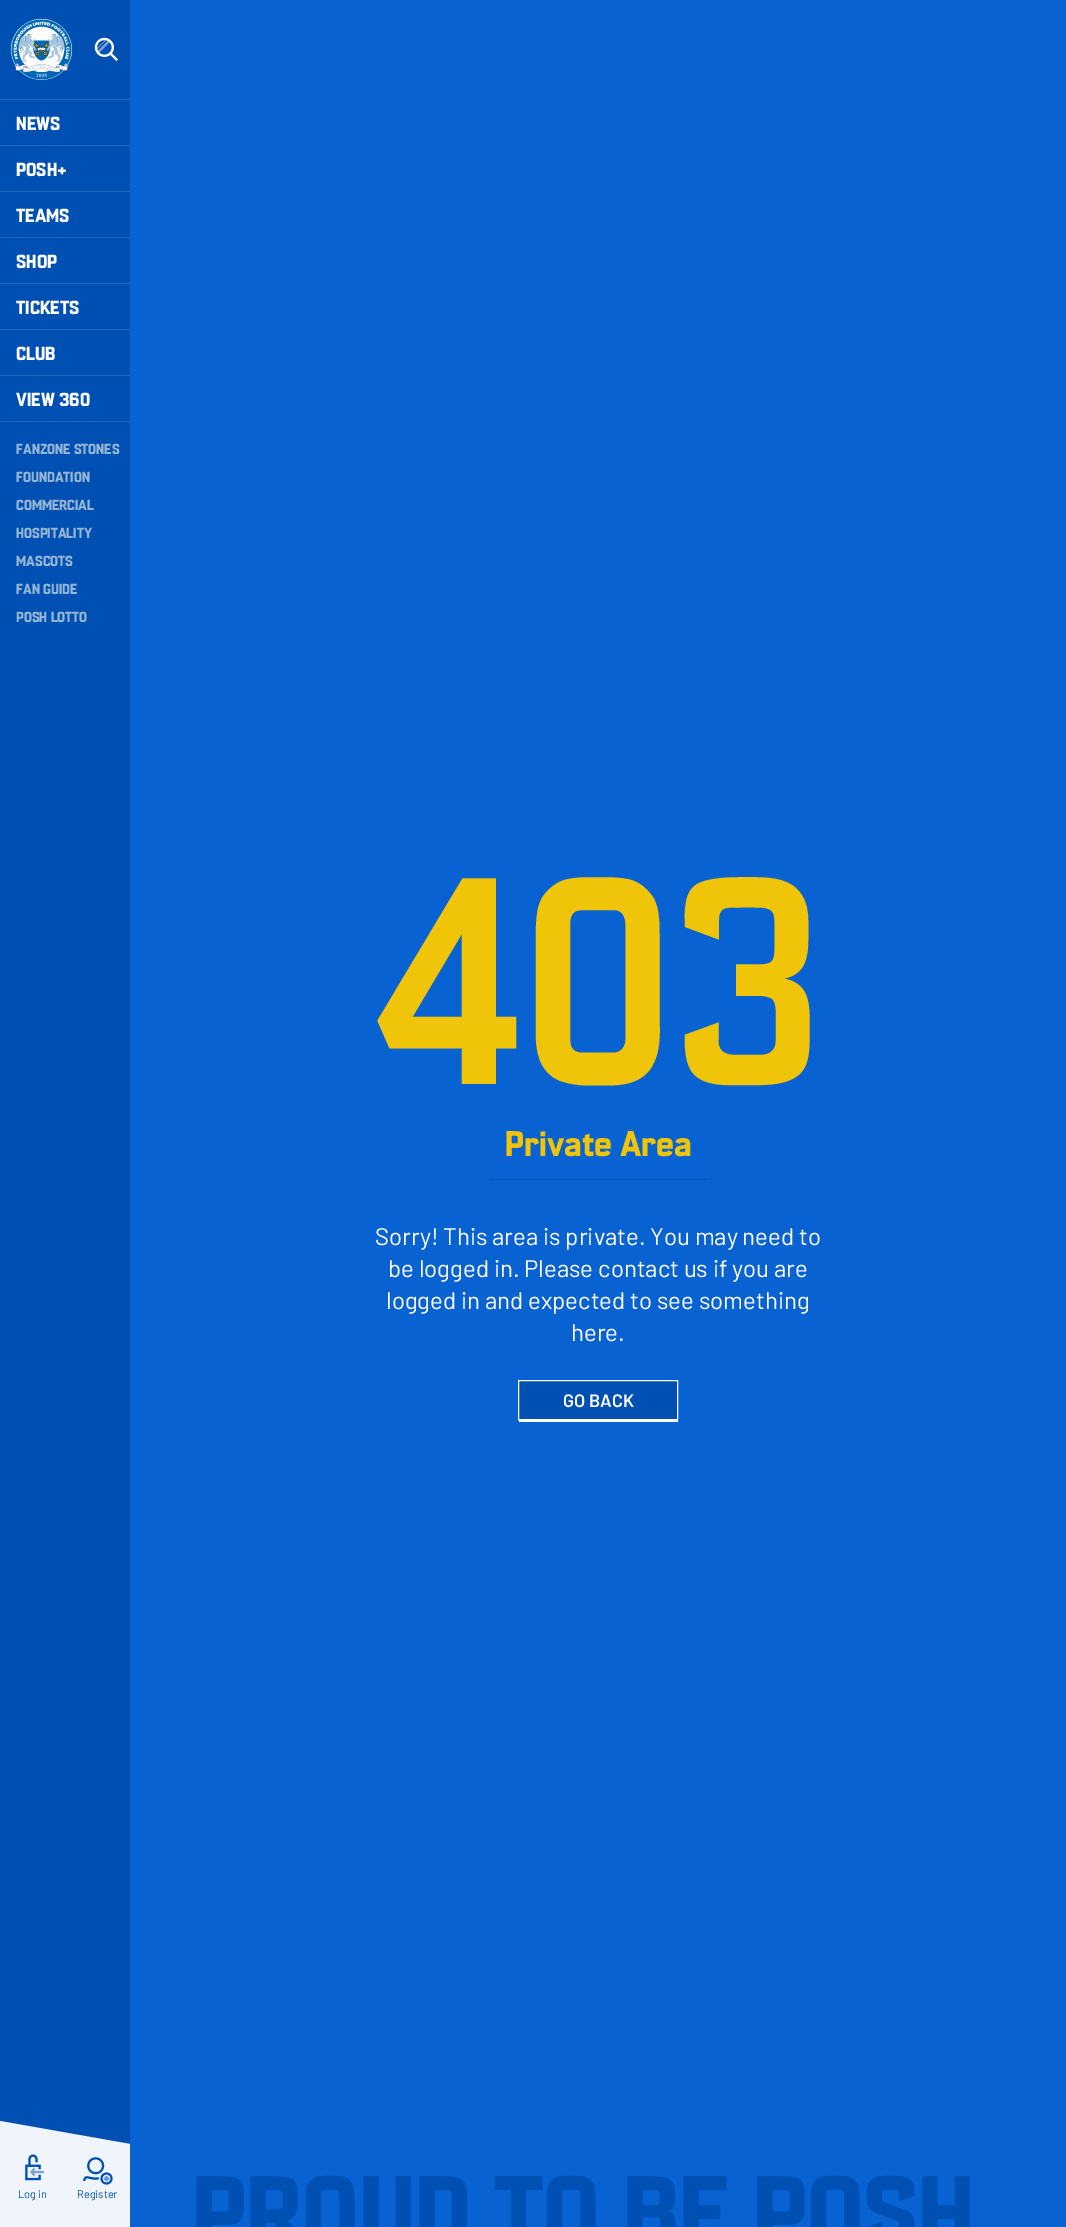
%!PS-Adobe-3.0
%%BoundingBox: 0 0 1066 2227
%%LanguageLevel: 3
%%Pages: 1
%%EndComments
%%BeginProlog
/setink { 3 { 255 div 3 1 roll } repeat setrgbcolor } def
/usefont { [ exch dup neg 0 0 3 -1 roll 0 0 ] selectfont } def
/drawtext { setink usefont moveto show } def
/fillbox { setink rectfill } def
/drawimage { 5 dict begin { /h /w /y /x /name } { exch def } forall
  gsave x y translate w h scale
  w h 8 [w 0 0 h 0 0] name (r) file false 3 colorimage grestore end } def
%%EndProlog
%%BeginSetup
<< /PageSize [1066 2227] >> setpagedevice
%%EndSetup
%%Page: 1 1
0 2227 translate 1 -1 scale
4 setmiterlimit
0 0 1066 2227 9 98 210 fillbox
0 0 130 2144 0 80 180 fillbox
(assets/img1.rgb) 10 18 63 63 drawimage
(assets/img2.rgb) 94 37 24 24 drawimage
0 99 130 1 30 103 195 fillbox
0 145 130 1 30 103 195 fillbox
(NEWS) 16 130 /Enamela-Bold 17 255 255 255 drawtext
0 191 130 1 30 103 195 fillbox
(POSH+) 16 176 /Enamela-Bold 17 255 255 255 drawtext
0 237 130 1 30 103 195 fillbox
(TEAMS) 16 222 /Enamela-Bold 17 255 255 255 drawtext
0 283 130 1 30 103 195 fillbox
(SHOP) 16 268 /Enamela-Bold 17 255 255 255 drawtext
0 329 130 1 30 103 195 fillbox
(TICKETS) 16 314 /Enamela-Bold 17 255 255 255 drawtext
0 375 130 1 30 103 195 fillbox
(CLUB) 16 360 /Enamela-Bold 17 255 255 255 drawtext
0 421 130 1 30 103 195 fillbox
(VIEW 360) 16 406 /Enamela-Bold 17 255 255 255 drawtext
(FANZONE STONES) 16 454 /Enamela-Bold 13 149 181 211 drawtext
(FOUNDATION) 16 482 /Enamela-Bold 13 149 181 211 drawtext
(COMMERCIAL) 16 510 /Enamela-Bold 13 149 181 211 drawtext
(HOSPITALITY) 16 538 /Enamela-Bold 13 149 181 211 drawtext
(MASCOTS) 16 566 /Enamela-Bold 13 149 181 211 drawtext
(FAN GUIDE) 16 594 /Enamela-Bold 13 149 181 211 drawtext
(POSH LOTTO) 16 622 /Enamela-Bold 13 149 181 211 drawtext
239 245 250 setink
0 2121 moveto 0 2227 lineto 130 2227 lineto 130 2144 lineto closepath fill
(assets/img3.rgb) 25 2154 19 27 drawimage
(Log in) 18 2198 /Barlow-Regular 11 0 80 180 drawtext
(assets/img4.rgb) 83 2157 30 28 drawimage
(Register) 77 2198 /Barlow-Regular 11 0 80 180 drawtext
(403) 374 1084 /Enamela-Medium 264 240 197 9 drawtext
489 1179 218 1 0 80 180 fillbox
(Private Area) 505 1156 /Enamela-Bold 32 240 197 9 drawtext
(Sorry! This area is private. You may need to) 375 1245 /Barlow-Regular 24 255 255 255 drawtext
(be logged in. Please contact us if you are) 388 1277 /Barlow-Regular 24 255 255 255 drawtext
(logged in and expected to see something) 386 1309 /Barlow-Regular 24 255 255 255 drawtext
(here.) 571 1341 /Barlow-Regular 24 255 255 255 drawtext
0 80 180 setink
518.5 1380.5 moveto 677.5 1380.5 lineto 677.5 1419.5 lineto 518.5 1419.5 lineto closepath gsave fill grestore
255 255 255 setink
stroke
(GO BACK) 563 1407 /Barlow-SemiBold 18 255 255 255 drawtext
519 1420 159 2 255 255 255 fillbox
(PROUD TO BE POSH) 192 2248 /Enamela-Bold 92 0 80 180 drawtext
showpage
%%EOF
